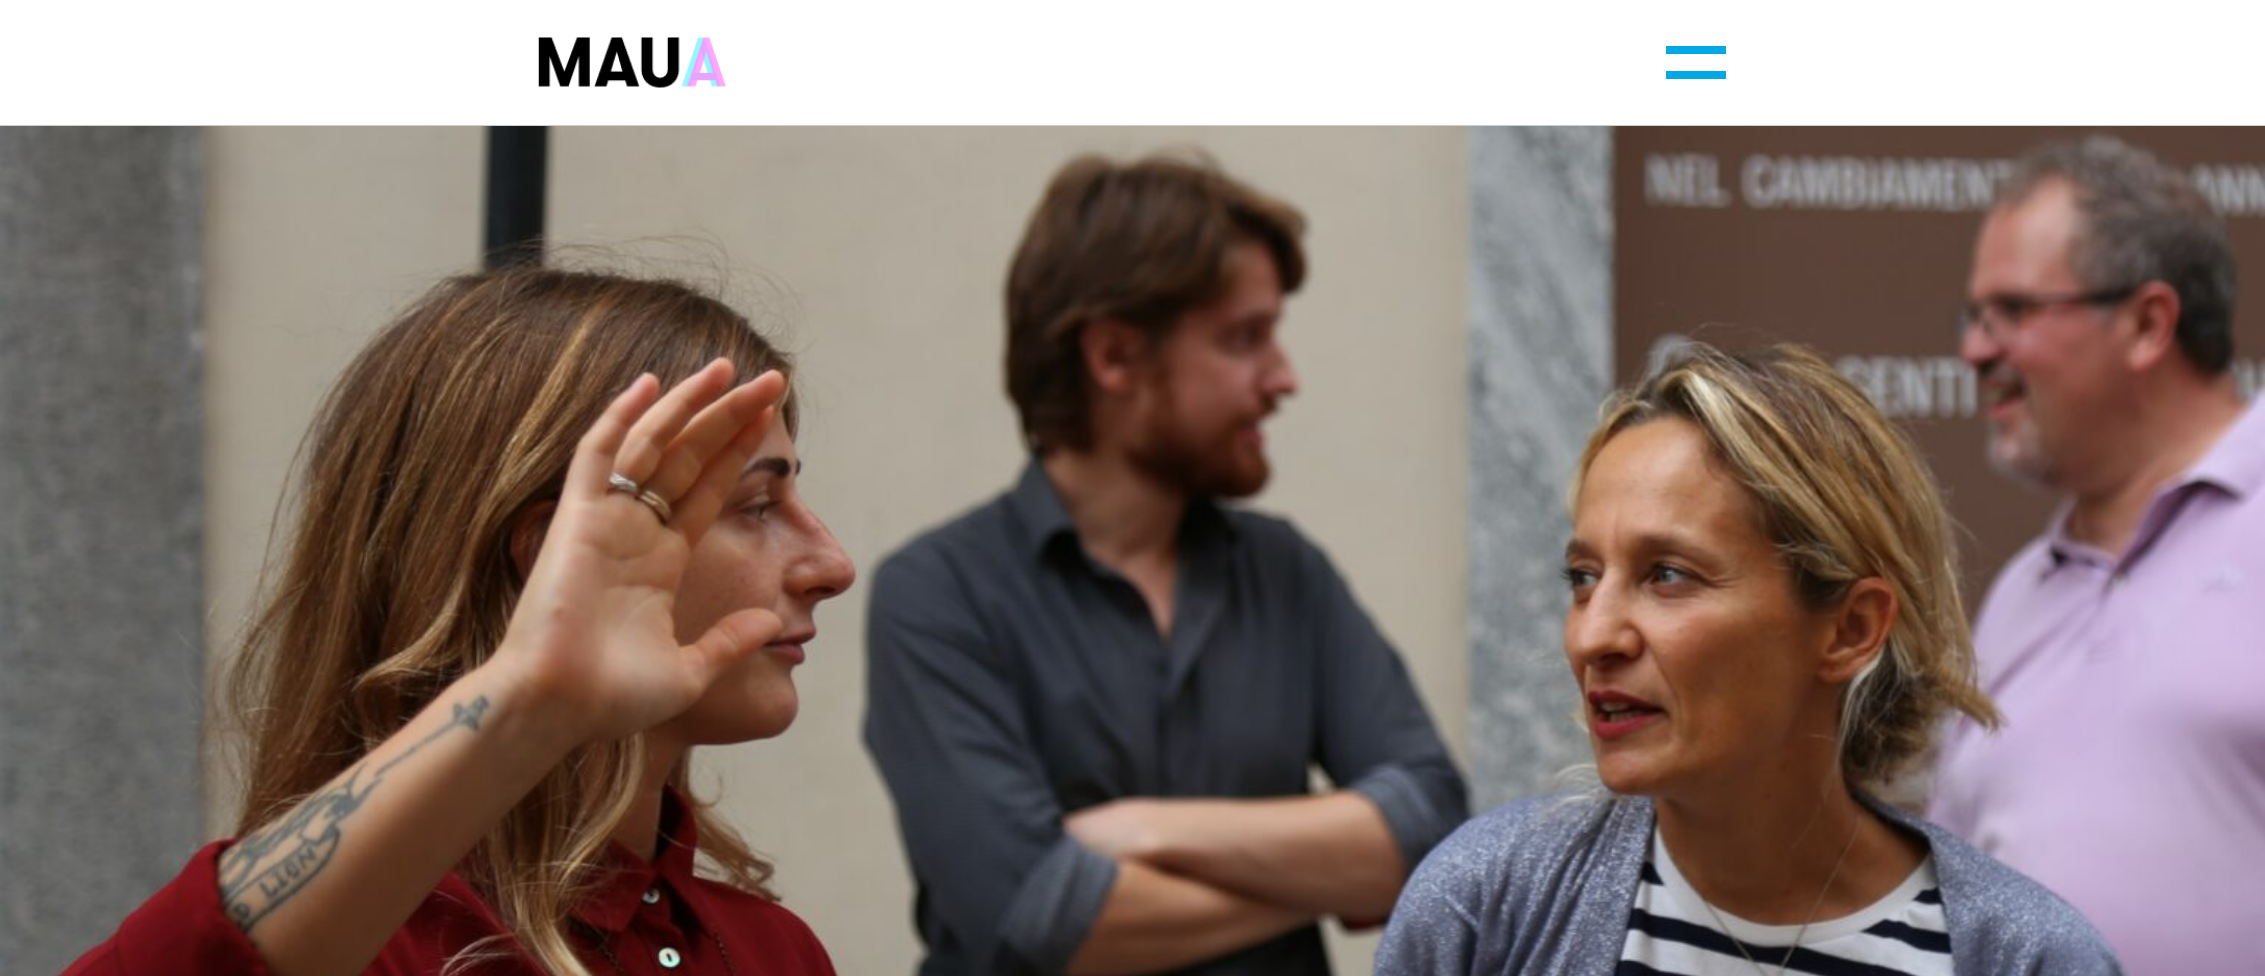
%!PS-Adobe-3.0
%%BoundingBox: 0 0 2265 976
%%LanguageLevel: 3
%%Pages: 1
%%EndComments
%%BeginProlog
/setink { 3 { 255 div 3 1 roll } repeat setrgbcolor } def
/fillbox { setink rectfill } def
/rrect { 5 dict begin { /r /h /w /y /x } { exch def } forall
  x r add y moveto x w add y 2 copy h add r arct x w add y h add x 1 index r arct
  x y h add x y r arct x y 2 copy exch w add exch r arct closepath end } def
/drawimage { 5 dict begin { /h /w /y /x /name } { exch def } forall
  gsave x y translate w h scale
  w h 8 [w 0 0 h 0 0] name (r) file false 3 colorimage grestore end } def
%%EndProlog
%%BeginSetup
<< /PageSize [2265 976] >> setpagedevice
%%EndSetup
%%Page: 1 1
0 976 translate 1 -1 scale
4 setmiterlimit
0 0 2265 976 255 255 255 fillbox
0 125 2265 1 204 204 204 fillbox
(assets/img1.rgb) 538 37 189 51 drawimage
0 168 228 setink
1666 46 60 8 1 rrect fill
1666 71 60 8 1 rrect fill
(assets/img2.rgb) 0 126 2265 850 drawimage
showpage
%%EOF
